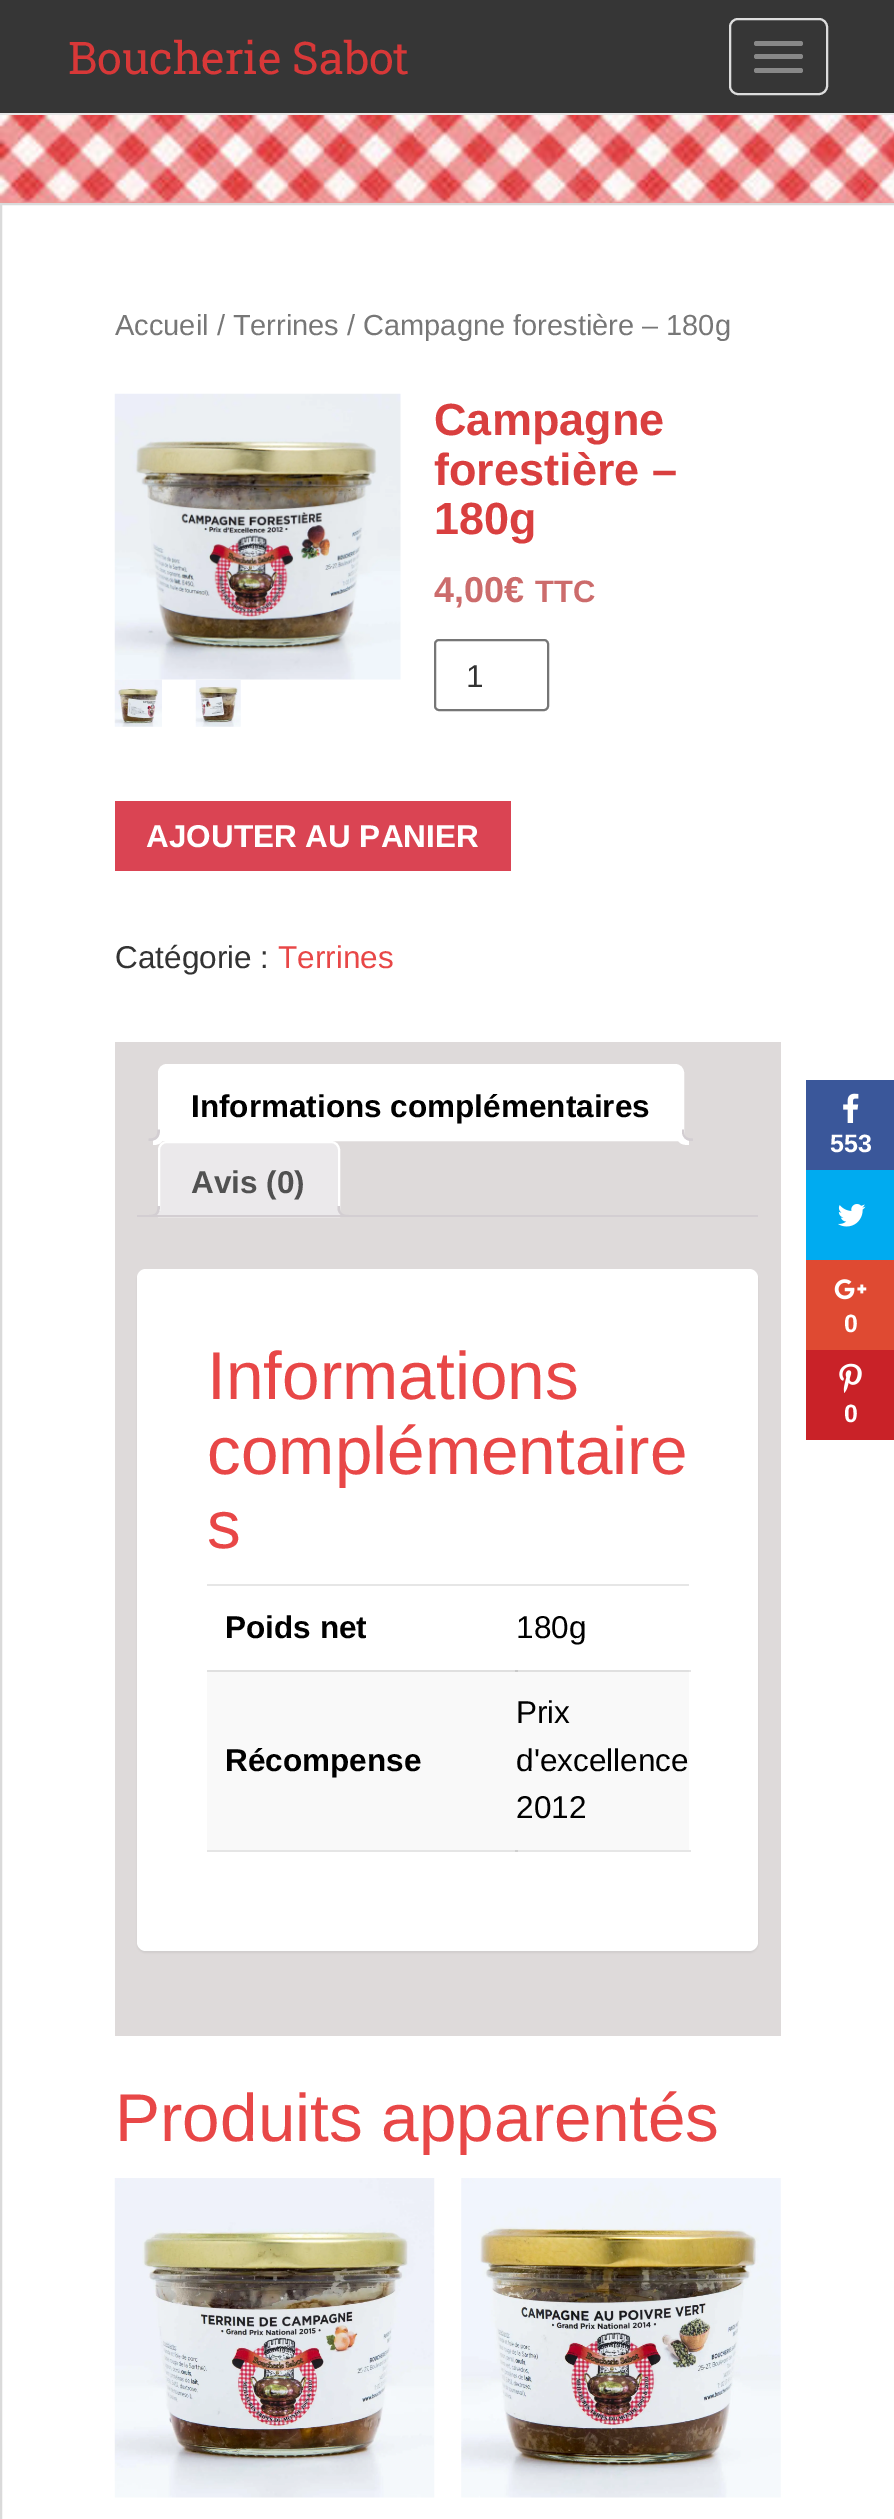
%!PS-Adobe-3.0
%%BoundingBox: 0 0 894 2519
%%LanguageLevel: 3
%%Pages: 1
%%EndComments
%%BeginProlog
/setink { 3 { 255 div 3 1 roll } repeat setrgbcolor } def
/usefont { [ exch dup neg 0 0 3 -1 roll 0 0 ] selectfont } def
/drawtext { setink usefont moveto show } def
/fillbox { setink rectfill } def
/setalpha { dup .setfillconstantalpha .setstrokeconstantalpha } def
/rrect { 5 dict begin { /r /h /w /y /x } { exch def } forall
  x r add y moveto x w add y 2 copy h add r arct x w add y h add x 1 index r arct
  x y h add x y r arct x y 2 copy exch w add exch r arct closepath end } def
/softshadow { 12 dict begin { /a /b /q /h /w /y /x } { exch def } forall gsave /was 0 def
  9 -2 -9 { dup b mul 4 div /e exch def 1 sub .425 mul 2.718 exch exp 1 add a .99 .min exch div /now exch def
    1 1 now sub 1 was sub div sub setalpha /was now def
    w h .min e 2 mul add 0 gt { x e sub y e sub w e 2 mul add h e 2 mul add
      q e add b .6 mul add w h .min 2 div e add .min 0 .max rrect fill } if } for grestore end } def
/drawimage { 5 dict begin { /h /w /y /x /name } { exch def } forall
  gsave x y translate w h scale
  w h 8 [w 0 0 h 0 0] name (r) file false 3 colorimage grestore end } def
%%EndProlog
%%BeginSetup
<< /PageSize [894 2519] /PageUsesTransparency true >> setpagedevice
%%EndSetup
%%Page: 1 1
0 .pushpdf14devicefilter
0 2519 translate 1 -1 scale
4 setmiterlimit
0 0 894 2519 255 255 255 fillbox
(assets/img1.rgb) 0 115 894 88 drawimage
0 0 894 113 54 54 54 fillbox
0 113 894 2 231 231 231 fillbox
(Boucherie Sabot) 68 74 /RobotoSlab-Regular 45 216 56 56 drawtext
221 221 221 setink
2 setlinewidth
730 19 97 75 8 rrect stroke
136 136 136 setink
754 41 49 5 2.5 rrect fill
754 54 49 5 2.5 rrect fill
754 68 49 5 2.5 rrect fill
218 218 218 setink
1 204 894 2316 rectstroke
(Accueil / Terrines / Campagne forestière – 180g) 115 335 /LiberationSans-Regular 29 119 119 119 drawtext
(assets/img2.rgb) 114 393 287 287 drawimage
(assets/img3.rgb) 114 679 48 48 drawimage
(assets/img4.rgb) 195 680 46 47 drawimage
(Campagne) 434 435 /LiberationSans-Bold 45 217 63 63 drawtext
(forestière –) 434 485 /LiberationSans-Bold 45 217 63 63 drawtext
(180g) 434 534 /LiberationSans-Bold 45 217 63 63 drawtext
(4,00€) 434 602 /LiberationSans-Bold 36 204 108 108 drawtext
(TTC) 535 602 /LiberationSans-Bold 31 204 108 108 drawtext
118 118 118 setink
435 640 113 70 4 rrect stroke
(1) 466 687 /LiberationSans-Regular 31.5 51 51 51 drawtext
115 801 396 70 218 68 83 fillbox
(AJOUTER AU PANIER) 146 847 /LiberationSans-Bold 31.5 255 255 255 drawtext
(Catégorie :) 115 968 /LiberationSans-Regular 31.5 51 51 51 drawtext
(Terrines) 278 968 /LiberationSans-Regular 31.5 232 71 71 drawtext
115 1042 666 994 222 218 218 fillbox
255 255 255 setink
167 1065 moveto 675 1065 lineto 679.5 1065 683 1068.5 683 1073 curveto 683 1140 lineto 159 1140 lineto 159 1073 lineto 159 1068.5 162.5 1065 167 1065 curveto closepath gsave fill grestore
stroke
(Informations complémentaires) 191 1117 /LiberationSans-Bold 31.5 0 0 0 drawtext
235 233 235 setink
167 1142 moveto 331 1142 lineto 335.5 1142 339 1145.5 339 1150 curveto 339 1216 lineto 159 1216 lineto 159 1150 lineto 159 1145.5 162.5 1142 167 1142 curveto closepath gsave fill grestore
255 255 255 setink
stroke
153 1140.5 moveto 153 1145 lineto 160.5 1145 164 1141.5 164 1134 curveto 159.5 1134 lineto 158.5 1137 156 1139.5 153 1140.5 curveto closepath fill
211 206 210 setink
148.5 1129.5 moveto 160 1129.5 lineto 160 1137.5 156.5 1141 148.5 1141 curveto closepath 148.5 1129.5 moveto 157.5 1129.5 lineto 157.5 1136.5 155.5 1138.5 148.5 1138.5 curveto closepath eofill
255 255 255 setink
677 1134 moveto 677 1143 681 1145 689 1145 curveto 689 1140.5 lineto 685.5 1140 683 1137.5 682 1134 curveto closepath fill
211 206 210 setink
682 1129.5 moveto 693 1129.5 lineto 693 1141 lineto 691 1141 lineto 686 1141 682 1136.5 682 1132 curveto closepath 684 1129.5 moveto 693 1129.5 lineto 693 1138.5 lineto 688.5 1138.5 684 1137.5 684 1132 curveto closepath eofill
(Avis \(0\)) 191 1193 /LiberationSans-Bold 31.5 81 81 81 drawtext
gsave
137 1064 621 153 rectclip
235 233 235 setink
153 1217 moveto 153 1222 lineto 160.5 1222 164 1218.5 164 1211 curveto 159.5 1211 lineto 158.5 1214 156 1216 153 1217 curveto closepath fill
grestore
211 206 210 setink
148.5 1206 moveto 160 1206 lineto 160 1214 156.5 1217 148.5 1217 curveto closepath 148.5 1206 moveto 157.5 1206 lineto 157.5 1213 155.5 1215 148.5 1215 curveto closepath eofill
gsave
137 1064 621 153 rectclip
235 233 235 setink
333 1211 moveto 333 1218.5 336.5 1222 344 1222 curveto 344 1217 lineto 341 1216 339 1214 338 1211 curveto closepath fill
grestore
337.5 1206 moveto 349 1206 lineto 349 1217 lineto 346.5 1217 lineto 341.5 1217 337.5 1213 337.5 1208 curveto closepath 340 1206 moveto 349 1206 lineto 349 1215 lineto 344 1215 340 1214 340 1208 curveto closepath eofill
137 1215 621 2 211 206 210 fillbox
0 0 0 setink
137 1271 621 682 9 1 0.05 softshadow
255 255 255 setink
137 1269 621 682 9 rrect fill
(Informations) 207 1399 /LiberationSans-Regular 67.5 232 71 71 drawtext
(complémentaire) 207 1474 /LiberationSans-Regular 67.5 232 71 71 drawtext
(s) 207 1548 /LiberationSans-Regular 67.5 232 71 71 drawtext
207 1584 482 2 230 230 230 fillbox
207 1670 482 180 249 249 249 fillbox
0.1 setalpha
515 1670 176 2 0 0 0 fillbox
207 1670 311 2 0 0 0 fillbox
1 setalpha
(Poids net) 225 1638 /LiberationSans-Bold 31.5 0 0 0 drawtext
(180g) 516 1638 /LiberationSans-Regular 31.5 0 0 0 drawtext
515 1850 176 2 230 230 230 fillbox
0.1 setalpha
207 1850 311 2 0 0 0 fillbox
1 setalpha
(Récompense) 225 1771 /LiberationSans-Bold 31.5 0 0 0 drawtext
(Prix) 516 1723 /LiberationSans-Regular 31.5 0 0 0 drawtext
(d'excellence) 516 1771 /LiberationSans-Regular 31.5 0 0 0 drawtext
(2012) 516 1818 /LiberationSans-Regular 31.5 0 0 0 drawtext
(Produits apparentés) 115 2141 /LiberationSans-Regular 67.5 232 71 71 drawtext
(assets/img5.rgb) 114 2178 321 320 drawimage
(assets/img6.rgb) 461 2178 320 320 drawimage
806 1080 88 90 58 87 154 fillbox
(assets/img7.rgb) 843 1093 16 30 drawimage
(553) 830 1152 /LiberationSans-Bold 25 255 255 255 drawtext
806 1170 88 90 0 171 240 fillbox
(assets/img8.rgb) 838 1204 28 23 drawimage
806 1260 88 90 223 74 50 fillbox
(assets/img9.rgb) 834 1279 33 21 drawimage
(0) 844 1332 /LiberationSans-Bold 25 255 255 255 drawtext
806 1350 88 90 201 34 40 fillbox
(assets/img10.rgb) 839 1363 23 30 drawimage
(0) 844 1422 /LiberationSans-Bold 25 255 255 255 drawtext
.poppdf14devicefilter showpage
%%EOF
